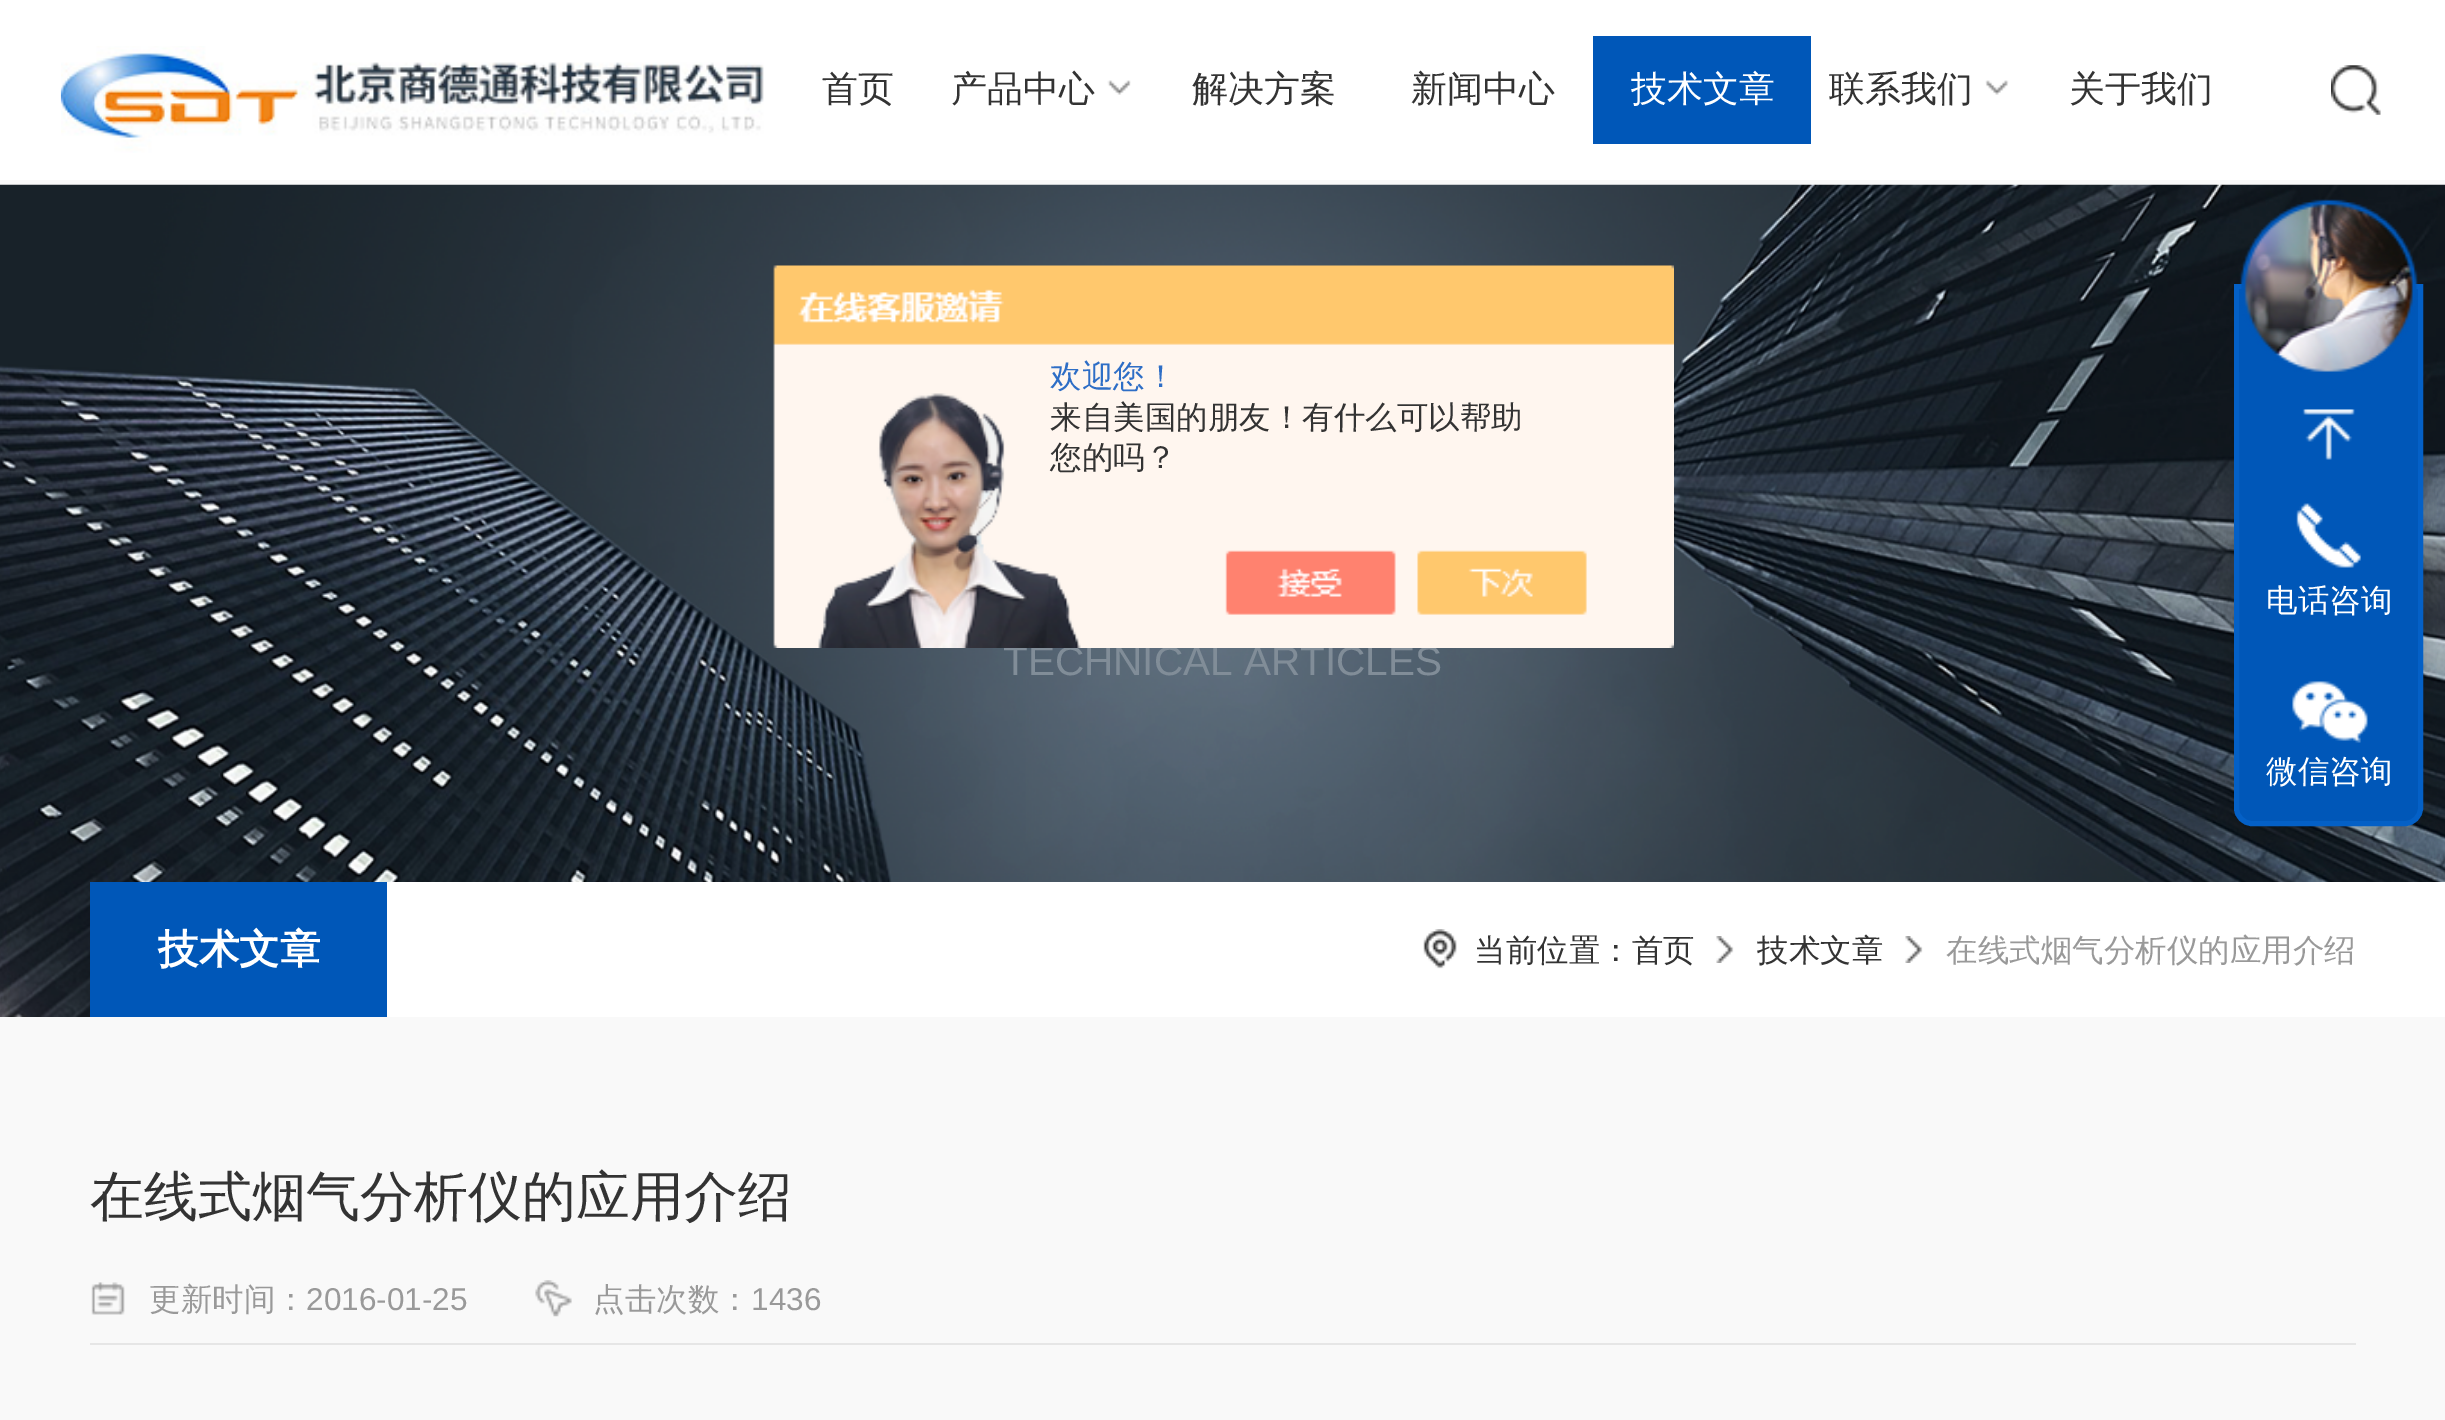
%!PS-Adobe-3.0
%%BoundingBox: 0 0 2445 1420
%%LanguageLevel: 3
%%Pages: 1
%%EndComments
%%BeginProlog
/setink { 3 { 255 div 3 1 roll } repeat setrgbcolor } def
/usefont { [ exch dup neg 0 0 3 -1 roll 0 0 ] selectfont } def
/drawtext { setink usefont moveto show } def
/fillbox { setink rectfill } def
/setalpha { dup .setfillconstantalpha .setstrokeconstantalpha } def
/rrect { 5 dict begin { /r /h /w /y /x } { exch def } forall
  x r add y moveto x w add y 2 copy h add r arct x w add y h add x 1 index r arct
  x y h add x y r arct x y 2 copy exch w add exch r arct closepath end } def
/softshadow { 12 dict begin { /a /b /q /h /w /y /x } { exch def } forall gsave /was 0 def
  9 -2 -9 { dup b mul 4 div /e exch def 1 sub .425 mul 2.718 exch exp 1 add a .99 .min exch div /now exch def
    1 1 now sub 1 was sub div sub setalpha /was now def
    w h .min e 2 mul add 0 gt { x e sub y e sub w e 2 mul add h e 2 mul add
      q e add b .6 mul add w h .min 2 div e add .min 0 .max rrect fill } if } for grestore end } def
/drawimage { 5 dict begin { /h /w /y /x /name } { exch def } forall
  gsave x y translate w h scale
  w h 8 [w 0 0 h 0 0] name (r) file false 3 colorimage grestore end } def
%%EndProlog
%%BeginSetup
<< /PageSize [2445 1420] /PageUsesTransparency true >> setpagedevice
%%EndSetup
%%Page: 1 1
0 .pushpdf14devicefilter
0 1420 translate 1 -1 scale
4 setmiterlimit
0 0 2445 1420 249 249 249 fillbox
0 0 2445 180 255 255 255 fillbox
(assets/img1.rgb) 60 46 704 107 drawimage
(首页) 822 101 /WenQuanYiZenHei-Medium 36 51 51 51 drawtext
(产品中心) 951 101 /WenQuanYiZenHei-Medium 36 51 51 51 drawtext
(assets/img2.rgb) 1107 80 24 15 drawimage
(解决方案) 1192 101 /WenQuanYiZenHei-Medium 36 51 51 51 drawtext
(新闻中心) 1411 101 /WenQuanYiZenHei-Medium 36 51 51 51 drawtext
1593 36 218 108 0 87 184 fillbox
(技术文章) 1631 101 /WenQuanYiZenHei-Medium 36 255 255 255 drawtext
(联系我们) 1829 101 /WenQuanYiZenHei-Medium 36 51 51 51 drawtext
(assets/img3.rgb) 1985 80 24 15 drawimage
(关于我们) 2069 101 /WenQuanYiZenHei-Medium 36 51 51 51 drawtext
(assets/img4.rgb) 2331 65 50 50 drawimage
(assets/img6.rgb) 0 184 2445 833 drawimage
(TECHNICAL ARTICLES) 1003 675 /LiberationSans-Regular 40.5 129 141 152 drawtext
(assets/img5.rgb) 773 265 901 383 drawimage
(欢迎您！) 1050 387 /WenQuanYiZenHei-Medium 31.5 46 110 198 drawtext
(来自美国的朋友！有什么可以帮助) 1050 428 /WenQuanYiZenHei-Medium 31.5 51 51 51 drawtext
(您的吗？) 1050 468 /WenQuanYiZenHei-Medium 31.5 51 51 51 drawtext
0 0 0 setink
2234 297 189 542 18 13.5 0.1 softshadow
0 87 184 setink
2236.5 286.5 moveto 2420.5 286.5 lineto 2420.5 808 lineto 2420.5 816.5 2413.5 823.5 2405 823.5 curveto 2252 823.5 lineto 2243.5 823.5 2236.5 816.5 2236.5 808 curveto closepath gsave fill grestore
4 96 198 setink
5 setlinewidth
stroke
(assets/img7.rgb) 2239 199 179 173 drawimage
(assets/img8.rgb) 2302 409 53 51 drawimage
(assets/img9.rgb) 2296 503 65 65 drawimage
(电话咨询) 2266 611 /WenQuanYiZenHei-Medium 31.5 255 255 255 drawtext
(assets/img10.rgb) 2292 681 76 62 drawimage
(微信咨询) 2266 782 /WenQuanYiZenHei-Medium 31.5 255 255 255 drawtext
387 882 2058 135 255 255 255 fillbox
90 882 297 135 0 87 184 fillbox
(技术文章) 158 963 /WenQuanYiZenHei-Bold 40.5 255 255 255 drawtext
(assets/img11.rgb) 1423 929 34 40 drawimage
(当前位置：首页) 1474 961 /WenQuanYiZenHei-Medium 31.5 51 51 51 drawtext
(assets/img12.rgb) 1716 936 18 27 drawimage
(技术文章) 1757 961 /WenQuanYiZenHei-Medium 31.5 51 51 51 drawtext
(assets/img13.rgb) 1905 936 18 27 drawimage
(在线式烟气分析仪的应用介绍) 1946 961 /WenQuanYiZenHei-Medium 31.5 153 153 153 drawtext
(在线式烟气分析仪的应用介绍) 90 1215 /WenQuanYiZenHei-Medium 54 51 51 51 drawtext
90 1343 2266 2 230 230 230 fillbox
(assets/img14.rgb) 91 1282 34 33 drawimage
(更新时间：) 149 1310 /WenQuanYiZenHei-Medium 31.5 153 153 153 drawtext
(2016-01-25) 306 1310 /LiberationSans-Regular 31.5 153 153 153 drawtext
(assets/img15.rgb) 535 1280 37 37 drawimage
(点击次数：) 593 1310 /WenQuanYiZenHei-Medium 31.5 153 153 153 drawtext
(1436) 751 1310 /LiberationSans-Regular 31.5 153 153 153 drawtext
.poppdf14devicefilter showpage
%%EOF
